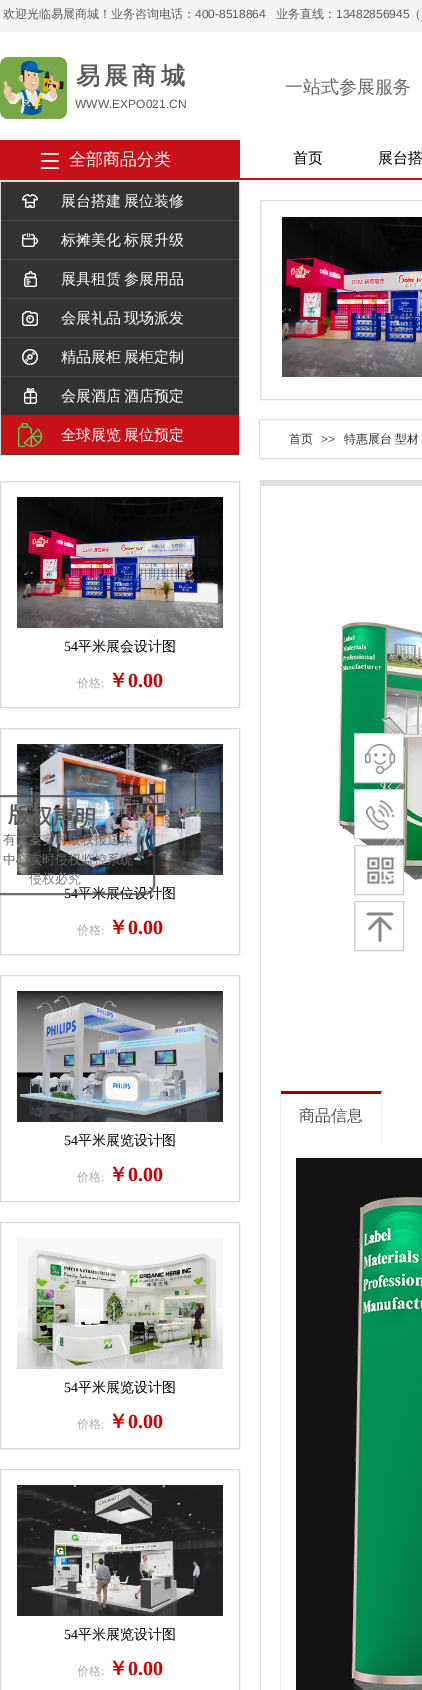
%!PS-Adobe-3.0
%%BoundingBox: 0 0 422 1690
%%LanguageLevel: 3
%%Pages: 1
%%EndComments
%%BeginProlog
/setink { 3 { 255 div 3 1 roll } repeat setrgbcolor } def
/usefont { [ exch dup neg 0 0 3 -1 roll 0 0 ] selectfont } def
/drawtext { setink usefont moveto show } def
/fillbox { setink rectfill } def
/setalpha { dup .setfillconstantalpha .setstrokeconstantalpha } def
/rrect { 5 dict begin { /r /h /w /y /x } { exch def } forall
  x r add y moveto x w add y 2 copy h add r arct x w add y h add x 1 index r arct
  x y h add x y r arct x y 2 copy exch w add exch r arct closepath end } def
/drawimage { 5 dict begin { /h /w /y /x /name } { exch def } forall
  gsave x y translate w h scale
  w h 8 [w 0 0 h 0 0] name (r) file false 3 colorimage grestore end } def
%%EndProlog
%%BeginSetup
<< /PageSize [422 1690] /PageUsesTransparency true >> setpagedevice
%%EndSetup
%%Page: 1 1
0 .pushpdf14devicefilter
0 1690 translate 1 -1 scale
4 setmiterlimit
0 0 422 1690 255 255 255 fillbox
0 0 422 32 244 244 244 fillbox
(欢迎光临易展商城！业务咨询电话：) 3 18 /WenQuanYiZenHei-Medium 12 90 90 90 drawtext
(400-8518864) 195 18 /LiberationSans-Regular 12 90 90 90 drawtext
(业务直线：) 276 18 /WenQuanYiZenHei-Medium 12 90 90 90 drawtext
(13482856945) 336 18 /LiberationSans-Regular 12 90 90 90 drawtext
(（) 409 18 /WenQuanYiZenHei-Medium 12 90 90 90 drawtext
(assets/img1.rgb) 0 57 67 62 drawimage
/WenQuanYiZenHei-Bold 24 usefont
76 84 moveto -1 0 32 -1 0 (易 展 商 城) awidthshow
(一站式参展服务) 285 93 /WenQuanYiZenHei-Medium 18 102 102 102 drawtext
(WWW.EXPO021.CN) 75 108 /LiberationSans-Regular 12 90 90 90 drawtext
0 140 240 40 200 17 24 fillbox
(assets/img2.rgb) 41 153 18 16 drawimage
(全部商品分类) 69 165 /WenQuanYiZenHei-Medium 17 255 255 255 drawtext
(首页) 293 163 /WenQuanYiZenHei-Medium 15 0 0 0 drawtext
(展台搭) 378 163 /WenQuanYiZenHei-Medium 15 0 0 0 drawtext
240 178 182 2 200 17 24 fillbox
217 217 217 setink
0.5 181.5 239 274 rectstroke
1 182 238 38 51 51 51 fillbox
1 220 238 1 67 67 67 fillbox
(assets/img3.rgb) 22 194 16 14 drawimage
255 255 255 setink
61 206 moveto -1 0 32 (展台搭建 展位装修) widthshow
1 221 238 38 51 51 51 fillbox
1 259 238 1 67 67 67 fillbox
(assets/img4.rgb) 22 233 16 14 drawimage
255 255 255 setink
61 245 moveto -1 0 32 (标摊美化 标展升级) widthshow
1 260 238 38 51 51 51 fillbox
1 298 238 1 67 67 67 fillbox
(assets/img5.rgb) 24 271 13 16 drawimage
255 255 255 setink
61 284 moveto -1 0 32 (展具租赁 参展用品) widthshow
1 299 238 38 51 51 51 fillbox
1 337 238 1 67 67 67 fillbox
(assets/img6.rgb) 22 311 16 15 drawimage
255 255 255 setink
61 323 moveto -1 0 32 (会展礼品 现场派发) widthshow
1 338 238 38 51 51 51 fillbox
1 376 238 1 67 67 67 fillbox
(assets/img7.rgb) 22 349 16 16 drawimage
255 255 255 setink
61 362 moveto -1 0 32 (精品展柜 展柜定制) widthshow
1 377 238 38 51 51 51 fillbox
1 415 238 1 67 67 67 fillbox
(assets/img8.rgb) 24 388 13 16 drawimage
255 255 255 setink
61 401 moveto -1 0 32 (会展酒店 酒店预定) widthshow
1 416 238 38 200 17 24 fillbox
1 454 238 1 67 67 67 fillbox
(assets/img9.rgb) 18 423 24 24 drawimage
255 255 255 setink
61 440 moveto -1 0 32 (全球展览 展位预定) widthshow
221 221 221 setink
260.5 200.5 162 199 rectstroke
(assets/img10.rgb) 282 217 140 160 drawimage
259.5 419.5 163 39 rectstroke
(首页) 289 443 /WenQuanYiZenHei-Medium 12 51 51 51 drawtext
(>>) 321 443 /LiberationSans-Regular 12 90 90 90 drawtext
/WenQuanYiZenHei-Medium 12 usefont
51 51 51 setink
344 443 moveto -1 0 32 (特惠展台 型材) widthshow
217 217 217 setink
0.5 481.5 239 226 rectstroke
(assets/img11.rgb) 17 497 206 131 drawimage
(54) 64 651 /LiberationSerif-Regular 14 0 0 0 drawtext
(平米展会设计图) 78 651 /WenQuanYiZenHei-Medium 14 0 0 0 drawtext
(价格) 77 687 /WenQuanYiZenHei-Medium 12 172 172 172 drawtext
(:) 101 687 /LiberationSerif-Regular 12 172 172 172 drawtext
(￥) 108 687 /WenQuanYiZenHei-Bold 20 204 0 0 drawtext
(0.00) 128 687 /LiberationSerif-Bold 20 204 0 0 drawtext
217 217 217 setink
0.5 728.5 239 226 rectstroke
(assets/img12.rgb) 17 744 206 131 drawimage
(54) 64 898 /LiberationSerif-Regular 14 0 0 0 drawtext
(平米展位设计图) 78 898 /WenQuanYiZenHei-Medium 14 0 0 0 drawtext
(价格) 77 934 /WenQuanYiZenHei-Medium 12 172 172 172 drawtext
(:) 101 934 /LiberationSerif-Regular 12 172 172 172 drawtext
(￥) 108 934 /WenQuanYiZenHei-Bold 20 204 0 0 drawtext
(0.00) 128 934 /LiberationSerif-Bold 20 204 0 0 drawtext
217 217 217 setink
0.5 975.5 239 226 rectstroke
(assets/img13.rgb) 17 991 206 131 drawimage
(54) 64 1145 /LiberationSerif-Regular 14 0 0 0 drawtext
(平米展览设计图) 78 1145 /WenQuanYiZenHei-Medium 14 0 0 0 drawtext
(价格) 77 1181 /WenQuanYiZenHei-Medium 12 172 172 172 drawtext
(:) 101 1181 /LiberationSerif-Regular 12 172 172 172 drawtext
(￥) 108 1181 /WenQuanYiZenHei-Bold 20 204 0 0 drawtext
(0.00) 128 1181 /LiberationSerif-Bold 20 204 0 0 drawtext
217 217 217 setink
0.5 1222.5 239 226 rectstroke
(assets/img14.rgb) 17 1238 206 131 drawimage
(54) 64 1392 /LiberationSerif-Regular 14 0 0 0 drawtext
(平米展览设计图) 78 1392 /WenQuanYiZenHei-Medium 14 0 0 0 drawtext
(价格) 77 1428 /WenQuanYiZenHei-Medium 12 172 172 172 drawtext
(:) 101 1428 /LiberationSerif-Regular 12 172 172 172 drawtext
(￥) 108 1428 /WenQuanYiZenHei-Bold 20 204 0 0 drawtext
(0.00) 128 1428 /LiberationSerif-Bold 20 204 0 0 drawtext
217 217 217 setink
0.5 1469.5 239 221 rectstroke
(assets/img15.rgb) 17 1485 206 131 drawimage
(54) 64 1639 /LiberationSerif-Regular 14 0 0 0 drawtext
(平米展览设计图) 78 1639 /WenQuanYiZenHei-Medium 14 0 0 0 drawtext
(价格) 77 1675 /WenQuanYiZenHei-Medium 12 172 172 172 drawtext
(:) 101 1675 /LiberationSerif-Regular 12 172 172 172 drawtext
(￥) 108 1675 /WenQuanYiZenHei-Bold 20 204 0 0 drawtext
(0.00) 128 1675 /LiberationSerif-Bold 20 204 0 0 drawtext
260 480 162 6 221 221 221 fillbox
260 480 1 1210 221 221 221 fillbox
(assets/img16.rgb) 338 622 84 258 drawimage
280 1090 1 600 238 238 238 fillbox
152 0 0 setink
281 1091 moveto 382 1091 lineto 381 1094 lineto 281 1094 lineto closepath fill
gsave
281 1090 141 53 rectclip
238 238 238 setink
382 1091 moveto 382 1146 lineto 381 1146 lineto 381 1094 lineto closepath fill
grestore
(商品信息) 299 1121 /WenQuanYiZenHei-Medium 16 83 83 83 drawtext
(assets/img17.rgb) 296 1158 126 532 drawimage
0.77 setalpha
67 67 67 setink
2 setlinewidth
-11 796 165 98 9 rrect stroke
gsave
9.5 798.5 moveto 99.5 803 lineto 98 829.5 lineto 8 825 lineto closepath clip newpath
/WenQuanYiZenHei-Bold 22 usefont
1 setalpha
90 90 90 setink
gsave 8 822 translate 3 rotate 0 0 moveto (版权声明) show grestore
grestore
1 setalpha
(×) 127 819 /LiberationSerif-Regular 22 74 68 67 drawtext
(有方案实时版权报送体) 3 844 /WenQuanYiZenHei-Medium 13 113 112 112 drawtext
(中心实时侵权监控系统) 3 864 /WenQuanYiZenHei-Medium 13 102 102 102 drawtext
(侵权必究) 29 883 /WenQuanYiZenHei-Medium 13 127 127 127 drawtext
255 255 255 setink
354.5 733.5 moveto 403.5 733.5 lineto 403.5 782.5 lineto 354.5 782.5 lineto closepath gsave fill grestore
204 204 204 setink
1 setlinewidth
stroke
(assets/img18.rgb) 365 744 30 30 drawimage
255 255 255 setink
354.5 789.5 moveto 403.5 789.5 lineto 403.5 838.5 lineto 354.5 838.5 lineto closepath gsave fill grestore
204 204 204 setink
stroke
(assets/img19.rgb) 366 800 29 30 drawimage
369 846 34 25 255 255 255 fillbox
204 204 204 setink
354.5 845.5 49 49 rectstroke
(assets/img20.rgb) 367 857 28 28 drawimage
354.5 901.5 49 49 rectstroke
(assets/img21.rgb) 366 912 28 30 drawimage
.poppdf14devicefilter showpage
%%EOF
